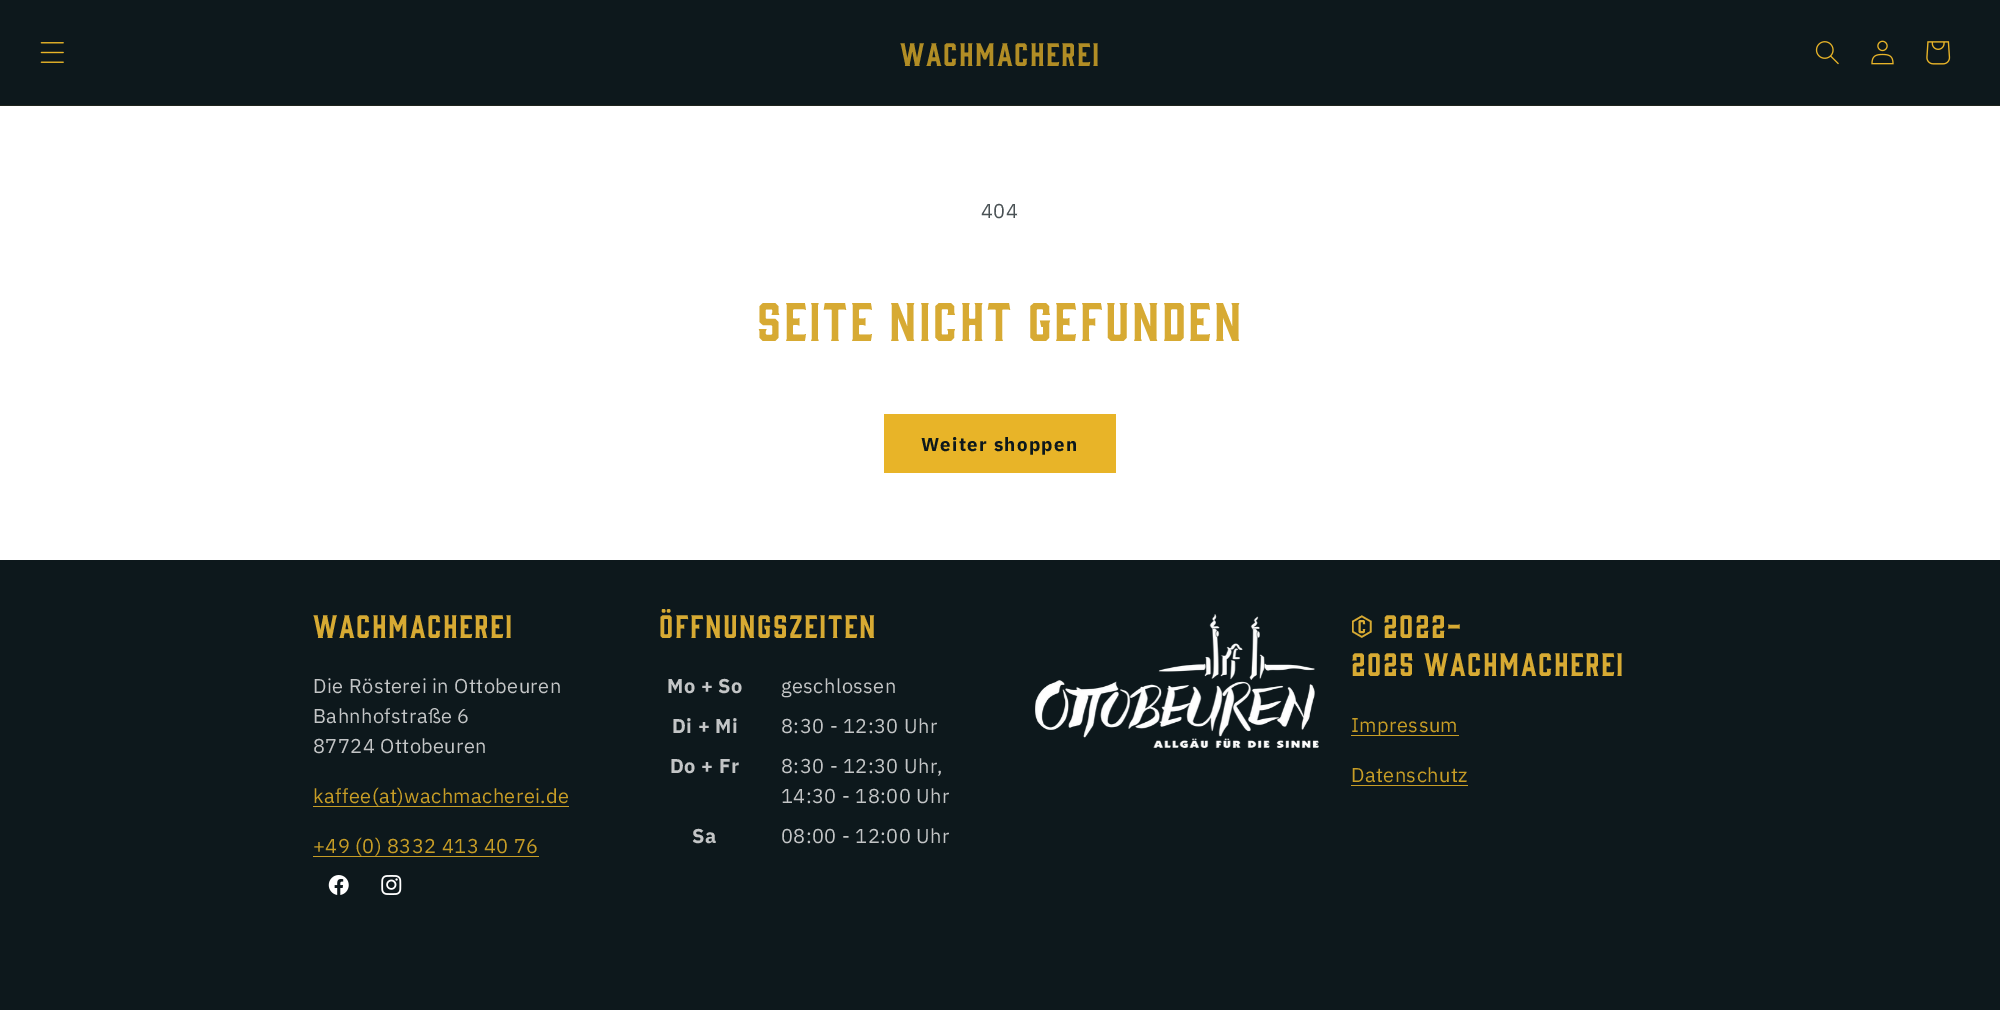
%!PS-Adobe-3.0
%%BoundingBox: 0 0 2000 1010
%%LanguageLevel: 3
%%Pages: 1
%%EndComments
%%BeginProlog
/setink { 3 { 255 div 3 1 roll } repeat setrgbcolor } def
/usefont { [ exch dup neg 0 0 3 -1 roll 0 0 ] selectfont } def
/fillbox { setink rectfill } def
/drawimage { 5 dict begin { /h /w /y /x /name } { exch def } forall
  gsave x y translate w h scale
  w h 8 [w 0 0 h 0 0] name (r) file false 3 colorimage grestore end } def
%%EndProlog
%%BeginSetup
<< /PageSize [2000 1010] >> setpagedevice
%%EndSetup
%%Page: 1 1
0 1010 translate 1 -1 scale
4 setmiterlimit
0 0 2000 1010 255 255 255 fillbox
0 0 2000 105 13 24 28 fillbox
0 105 2000 1 31 36 29 fillbox
(assets/img1.rgb) 40 42 24 21 drawimage
/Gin-Regular 30 usefont
177 141 37 setink
900 66 moveto 1.5 0 (WACHMACHEREI) ashow
(assets/img2.rgb) 1815 41 24 24 drawimage
(assets/img3.rgb) 1871 40 23 25 drawimage
(assets/img4.rgb) 1926 41 25 24 drawimage
/IBMPlexSans-Regular 20 usefont
74 82 85 setink
981 218 moveto 0.4 0 (404) ashow
/Gin-Regular 50 usefont
215 170 51 setink
757 341 moveto 2.5 0 (SEITE NICHT GEFUNDEN) ashow
884 414 232 59 232 180 40 fillbox
/IBMPlexSans-Bold 18.75 usefont
13 24 28 setink
921 451 moveto 1.25 0 (Weiter shoppen) ashow
0 560 2000 450 13 24 28 fillbox
/Gin-Regular 30 usefont
215 170 51 setink
313 638 moveto 1.5 0 (WACHMACHEREI) ashow
/IBMPlexSans-Regular 20 usefont
195 197 198 setink
313 693 moveto 0.4 0 (Die Rösterei in Ottobeuren) ashow
313 723 moveto 0.4 0 (Bahnhofstraße 6) ashow
313 753 moveto 0.4 0 (87724 Ottobeuren) ashow
199 157 38 setink
313 803 moveto 0.4 0 (kaffee\(at\)wachmacherei.de) ashow
313 806 256 1 199 157 38 fillbox
313 853 moveto 0.4 0 (+49 \(0\) 8332 413 40 76) ashow
313 856 226 1 199 157 38 fillbox
(assets/img5.rgb) 328 875 21 20 drawimage
(assets/img6.rgb) 381 875 21 20 drawimage
/Gin-Regular 30 usefont
215 170 51 setink
659 638 moveto 1.5 0 (ÖFFNUNGSZEITEN) ashow
/IBMPlexSans-Bold 20 usefont
195 197 198 setink
667 693 moveto 0.4 0 (Mo + So) ashow
/IBMPlexSans-Regular 20 usefont
781 693 moveto 0.4 0 (geschlossen) ashow
/IBMPlexSans-Bold 20 usefont
672 733 moveto 0.4 0 (Di + Mi) ashow
/IBMPlexSans-Regular 20 usefont
781 733 moveto 0.4 0 (8:30 - 12:30 Uhr) ashow
/IBMPlexSans-Bold 20 usefont
670 773 moveto 0.4 0 (Do + Fr) ashow
/IBMPlexSans-Regular 20 usefont
781 773 moveto 0.4 0 (8:30 - 12:30 Uhr,) ashow
781 803 moveto 0.4 0 (14:30 - 18:00 Uhr) ashow
/IBMPlexSans-Bold 20 usefont
692 843 moveto 0.4 0 (Sa) ashow
/IBMPlexSans-Regular 20 usefont
781 843 moveto 0.4 0 (08:00 - 12:00 Uhr) ashow
(assets/img7.rgb) 1035 614 284 134 drawimage
/Gin-Regular 30 usefont
215 170 51 setink
1351 638 moveto 1.5 0 (© 2022-) ashow
1351 676 moveto 1.5 0 (2025 WACHMACHEREI) ashow
1351 735 108 1 199 157 38 fillbox
/IBMPlexSans-Regular 20 usefont
1351 732 moveto 0.4 0 (Impressum) ashow
1351 782 moveto 0.4 0 (Datenschutz) ashow
1351 785 117 1 199 157 38 fillbox
showpage
%%EOF
